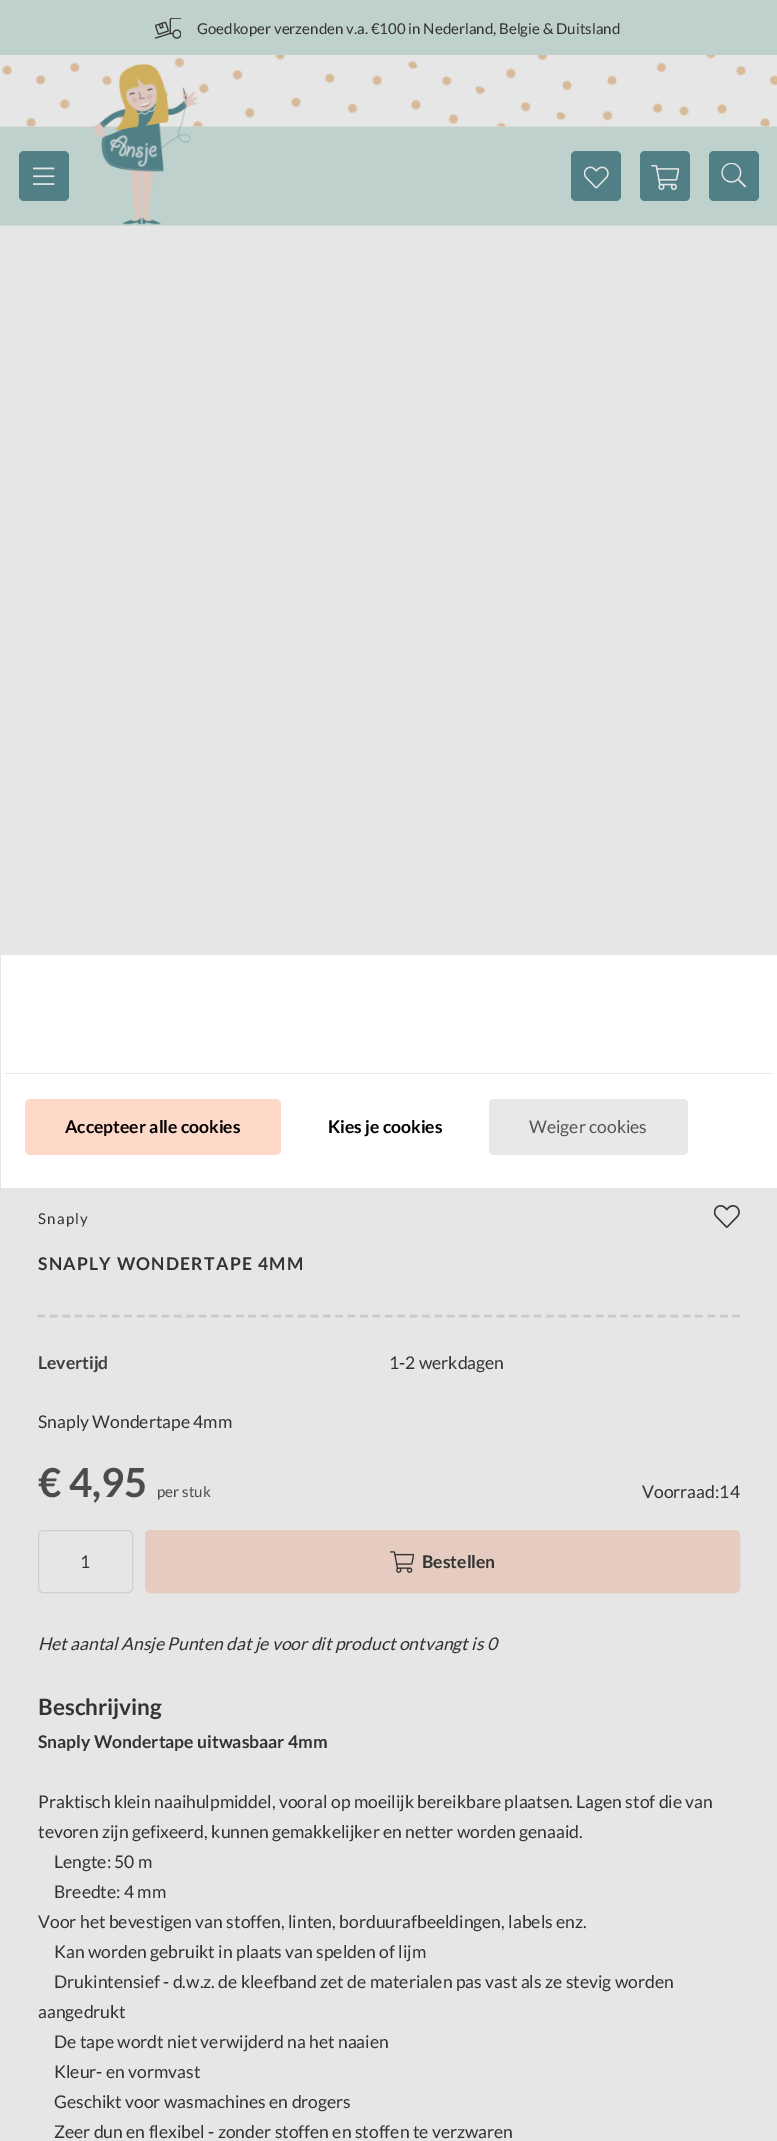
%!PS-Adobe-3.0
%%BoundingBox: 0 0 777 2141
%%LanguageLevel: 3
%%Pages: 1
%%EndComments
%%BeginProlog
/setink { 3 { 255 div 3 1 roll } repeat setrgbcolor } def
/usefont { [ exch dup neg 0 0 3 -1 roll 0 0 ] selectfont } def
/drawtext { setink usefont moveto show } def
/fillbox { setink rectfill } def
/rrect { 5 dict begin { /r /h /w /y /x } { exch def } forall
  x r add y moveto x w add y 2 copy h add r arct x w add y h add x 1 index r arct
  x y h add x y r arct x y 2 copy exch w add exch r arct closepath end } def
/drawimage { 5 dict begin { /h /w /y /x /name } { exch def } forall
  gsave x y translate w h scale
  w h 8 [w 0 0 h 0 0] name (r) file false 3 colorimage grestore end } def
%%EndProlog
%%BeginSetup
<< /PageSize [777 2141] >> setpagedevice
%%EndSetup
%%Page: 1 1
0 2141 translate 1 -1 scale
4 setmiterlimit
0 0 777 2141 230 230 230 fillbox
0 0 777 55 190 209 204 fillbox
(assets/img1.rgb) 155 18 26 21 drawimage
(Goedkoper verzenden v.a. €100 in Nederland, Belgie & Duitsland) 197 34 /Lato-Regular 15 51 51 51 drawtext
0 126 777 1 215 215 215 fillbox
(assets/img2.rgb) 0 55 777 72 drawimage
0 127 777 98 190 209 204 fillbox
0 225 777 1 215 215 215 fillbox
80 128 134 setink
19 151 50 50 5 rrect fill
(assets/img3.rgb) 33 167 22 18 drawimage
(assets/img4.rgb) 92 63 106 162 drawimage
571 151 50 50 5 rrect fill
(assets/img5.rgb) 584 166 25 23 drawimage
640 151 50 50 5 rrect fill
(assets/img6.rgb) 651 165 28 25 drawimage
709 151 50 50 5 rrect fill
(assets/img7.rgb) 721 163 25 25 drawimage
1 955 776 233 255 255 255 fillbox
5 1073 768 1 232 232 232 fillbox
254 217 201 setink
25 1099 256 56 5 rrect fill
(Accepteer alle cookies) 65 1133 /Lato-Bold 17.5 0 0 0 drawtext
(Kies je cookies) 328 1133 /Lato-Bold 17.5 0 0 0 drawtext
232 232 232 setink
489 1099 199 56 5 rrect fill
(Weiger cookies) 529 1133 /Lato-Regular 17.5 85 85 85 drawtext
/Lato-Regular 15 usefont
51 51 51 setink
38 1224 moveto 1.25 0 (Snaply) ashow
(assets/img8.rgb) 714 1205 26 23 drawimage
/Lato-Bold 17.5 usefont
38 1270 moveto 1.25 0 (SNAPLY WONDERTAPE 4MM) ashow
202 202 202 setink
2.5 setlinewidth
[7.5 4.91] 0 setdash
37.5 1316 moveto 740 1316 lineto stroke
(Levertijd) 38 1369 /Lato-Bold 17.5 62 62 62 drawtext
(1-2 werkdagen) 389 1369 /Lato-Regular 17.5 51 51 51 drawtext
(Snaply Wondertape 4mm) 38 1428 /Lato-Regular 17.5 51 51 51 drawtext
(€ 4,95) 38 1497 /Lato-Bold 40 76 76 76 drawtext
(per stuk) 157 1497 /Lato-Regular 15 76 76 76 drawtext
(Voorraad:14) 642 1498 /Lato-Regular 17.5 51 51 51 drawtext
208 208 208 setink
1 setlinewidth
[] 0 setdash
38.5 1530.5 94 62 4.5 rrect stroke
(1) 80 1568 /Lato-Regular 17.5 51 51 51 drawtext
229 203 192 setink
145.5 1530.5 594 62 4.5 rrect gsave fill grestore
stroke
(assets/img9.rgb) 390 1551 24 22 drawimage
(Bestellen) 422 1568 /Lato-Bold 17.5 51 51 51 drawtext
(Het aantal Ansje Punten dat je voor dit product ontvangt is 0) 38 1650 /Lato-Italic 17.5 51 51 51 drawtext
(Beschrijving) 38 1715 /Lato-Bold 22.5 51 51 51 drawtext
(Snaply Wondertape uitwasbaar 4mm) 38 1748 /Lato-Bold 17.5 51 51 51 drawtext
(Praktisch klein naaihulpmiddel, vooral op moeilijk bereikbare plaatsen. Lagen stof die van) 38 1808 /Lato-Regular 17.5 51 51 51 drawtext
(tevoren zijn gefixeerd, kunnen gemakkelijker en netter worden genaaid.) 38 1838 /Lato-Regular 17.5 51 51 51 drawtext
(Lengte: 50 m) 54 1868 /Lato-Regular 17.5 51 51 51 drawtext
(Breedte: 4 mm) 54 1898 /Lato-Regular 17.5 51 51 51 drawtext
(Voor het bevestigen van stoffen, linten, borduurafbeeldingen, labels enz.) 38 1928 /Lato-Regular 17.5 51 51 51 drawtext
(Kan worden gebruikt in plaats van spelden of lijm) 54 1958 /Lato-Regular 17.5 51 51 51 drawtext
(Drukintensief - d.w.z. de kleefband zet de materialen pas vast als ze stevig worden) 54 1988 /Lato-Regular 17.5 51 51 51 drawtext
(aangedrukt) 38 2018 /Lato-Regular 17.5 51 51 51 drawtext
(De tape wordt niet verwijderd na het naaien) 54 2048 /Lato-Regular 17.5 51 51 51 drawtext
(Kleur- en vormvast) 54 2078 /Lato-Regular 17.5 51 51 51 drawtext
(Geschikt voor wasmachines en drogers) 54 2108 /Lato-Regular 17.5 51 51 51 drawtext
(Zeer dun en flexibel - zonder stoffen en stoffen te verzwaren) 54 2138 /Lato-Regular 17.5 51 51 51 drawtext
showpage
%%EOF
